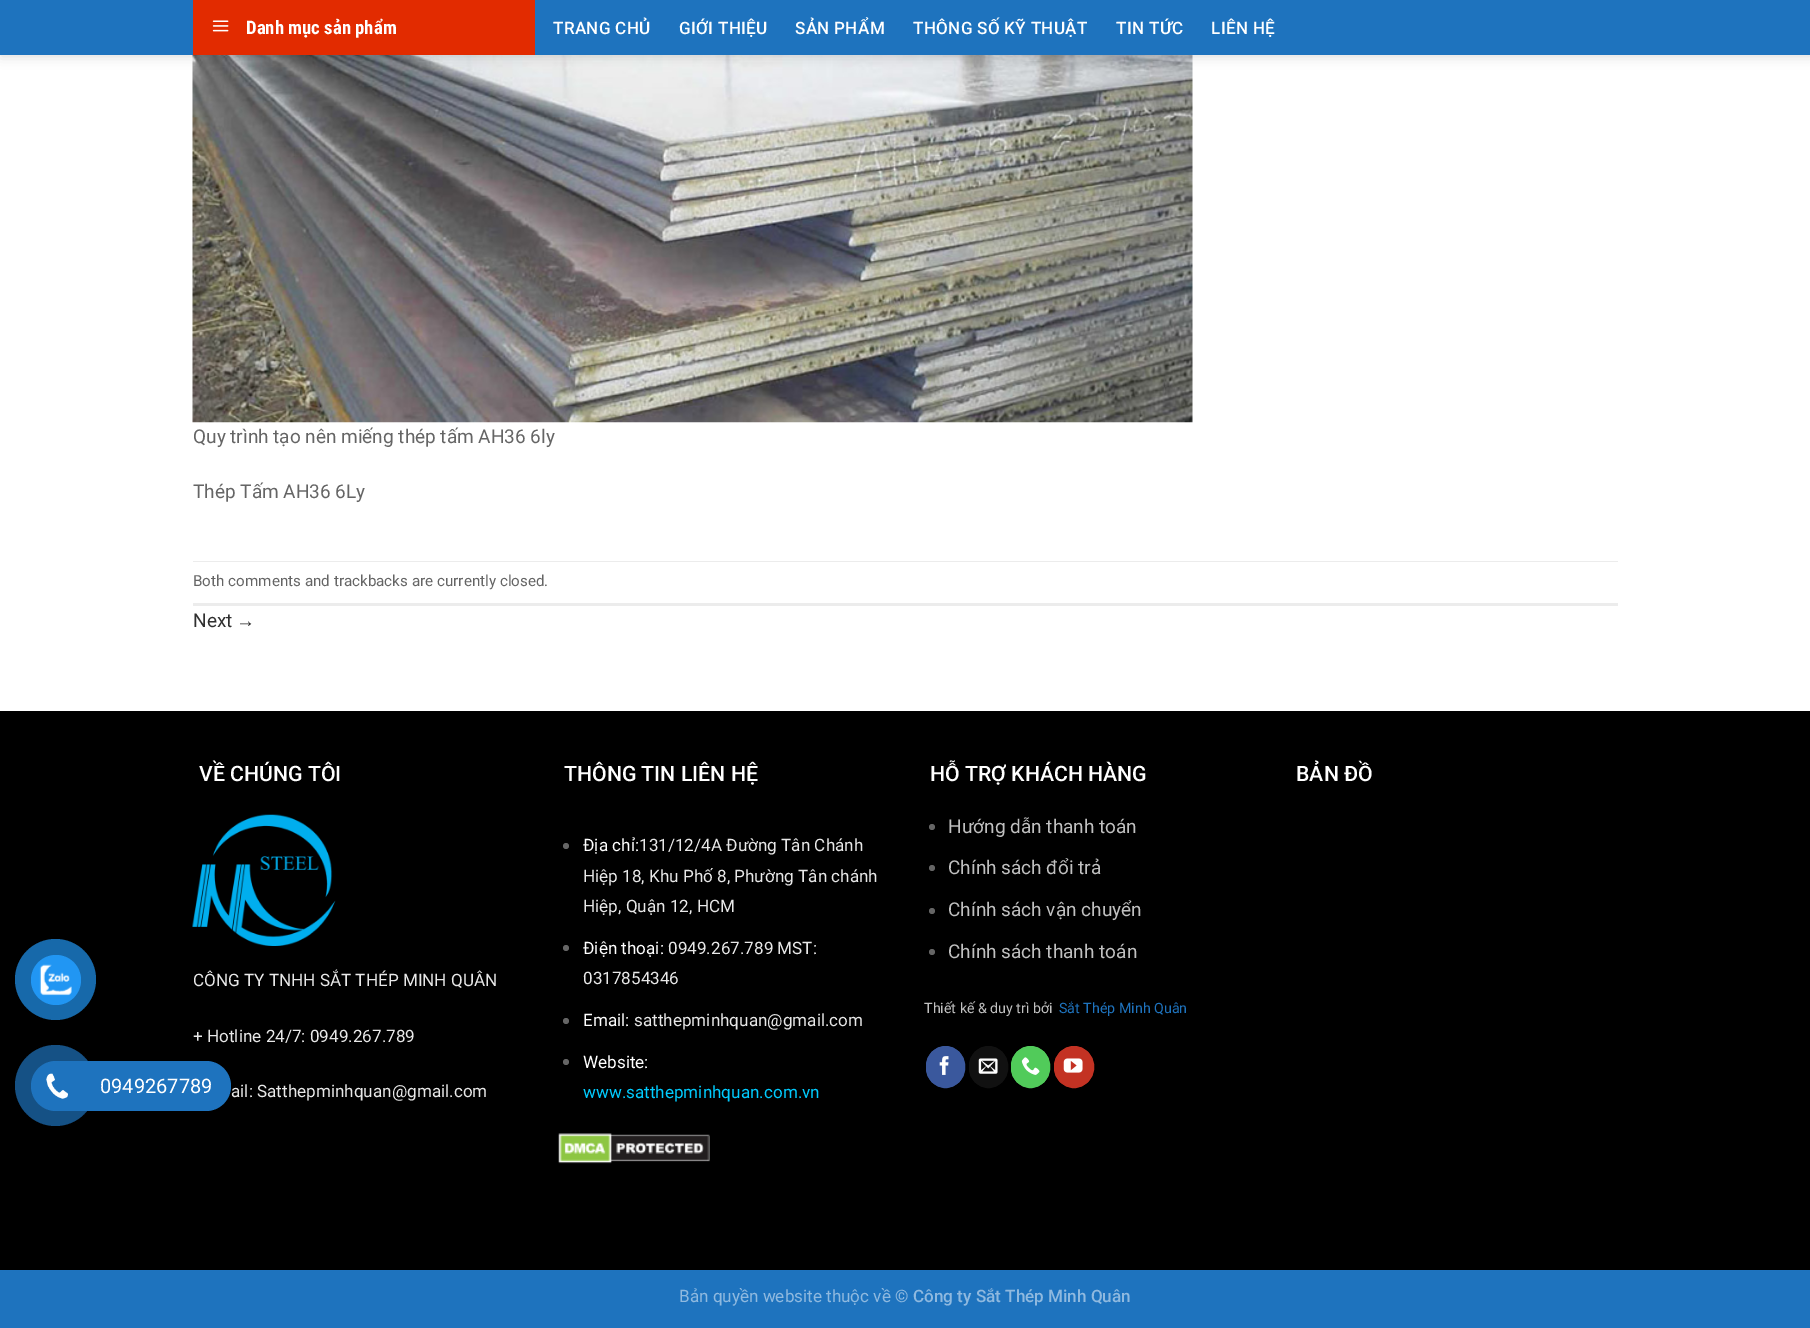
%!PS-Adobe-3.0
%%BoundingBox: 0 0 1810 1328
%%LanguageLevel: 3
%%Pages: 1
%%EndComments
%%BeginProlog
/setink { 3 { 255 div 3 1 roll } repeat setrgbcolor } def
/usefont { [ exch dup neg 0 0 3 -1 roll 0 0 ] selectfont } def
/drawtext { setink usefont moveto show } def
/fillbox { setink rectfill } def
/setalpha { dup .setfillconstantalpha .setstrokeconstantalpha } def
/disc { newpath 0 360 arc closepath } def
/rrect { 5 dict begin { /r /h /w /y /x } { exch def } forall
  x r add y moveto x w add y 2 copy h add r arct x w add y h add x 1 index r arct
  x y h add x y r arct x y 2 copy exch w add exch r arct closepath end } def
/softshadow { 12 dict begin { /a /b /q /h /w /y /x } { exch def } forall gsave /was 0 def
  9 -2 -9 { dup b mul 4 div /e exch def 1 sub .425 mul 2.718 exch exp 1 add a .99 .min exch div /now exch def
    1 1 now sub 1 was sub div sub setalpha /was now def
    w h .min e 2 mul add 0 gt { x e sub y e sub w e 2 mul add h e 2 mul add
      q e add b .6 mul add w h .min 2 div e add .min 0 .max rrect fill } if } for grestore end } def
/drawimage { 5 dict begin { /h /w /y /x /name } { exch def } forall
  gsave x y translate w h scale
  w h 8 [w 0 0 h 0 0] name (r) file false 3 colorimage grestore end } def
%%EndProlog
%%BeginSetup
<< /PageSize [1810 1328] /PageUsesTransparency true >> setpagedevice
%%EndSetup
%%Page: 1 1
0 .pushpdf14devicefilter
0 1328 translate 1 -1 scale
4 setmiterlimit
0 0 1810 1328 255 255 255 fillbox
0 711 1810 559 0 0 0 fillbox
23 105 170 setink
55.5 979.5 40.5 disc fill
33 150 243 setink
56 980 25 disc fill
(assets/img1.rgb) 39 964 33 32 drawimage
30 115 190 setink
38 1061 193 50 25 rrect fill
0.7 setalpha
55.5 1085.5 40.5 disc fill
1 setalpha
56 1086 25 disc fill
(assets/img2.rgb) 46 1073 22 26 drawimage
(0949267789) 100 1093 /Roboto-Regular 20 255 255 255 drawtext
(assets/img4.rgb) 192 55 1001 368 drawimage
0 0 0 setink
1 1 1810 55 0 6 0.15 softshadow
0 0 1810 55 30 115 190 fillbox
193 0 342 55 226 43 0 fillbox
(assets/img3.rgb) 212 20 17 12 drawimage
(Danh mục sản phẩm) 246 34 /RobotoCondensed-Bold 18.75 255 255 255 drawtext
/Roboto-Medium 17.1 usefont
553 34 moveto 0.3 0 (TRANG CHỦ) ashow
679 34 moveto 0.3 0 (GIỚI THIỆU) ashow
795 34 moveto 0.3 0 (SẢN PHẨM) ashow
913 34 moveto 0.3 0 (THÔNG SỐ KỸ THUẬT) ashow
1116 34 moveto 0.3 0 (TIN TỨC) ashow
1211 34 moveto 0.3 0 (LIÊN HỆ) ashow
(Quy trình tạo nên miếng thép tấm AH36 6ly) 193 443 /Roboto-Regular 19 101 101 101 drawtext
(Thép Tấm AH36 6Ly) 193 498 /Roboto-Regular 19 101 101 101 drawtext
193 561 1425 1 236 236 236 fillbox
193 603 1425 3 236 236 236 fillbox
(Both comments and trackbacks are currently closed.) 193 586 /Roboto-Regular 15.2 101 101 101 drawtext
(Next) 193 627 /Roboto-Regular 19 48 48 48 drawtext
(→) 236 627 /LiberationSans-Regular 19 48 48 48 drawtext
(VỀ CHÚNG TÔI) 199 781 /Roboto-Medium 21.25 255 255 255 drawtext
(assets/img5.rgb) 192 814 144 132 drawimage
(CÔNG TY TNHH SẮT THÉP MINH QUÂN) 193 986 /Roboto-Regular 17.1 232 232 232 drawtext
(+ Hotline 24/7: 0949.267.789) 193 1042 /Roboto-Regular 17.1 232 232 232 drawtext
(ail: Satthepminhquan@gmail.com) 231 1097 /Roboto-Regular 17.1 232 232 232 drawtext
(THÔNG TIN LIÊN HỆ) 564 781 /Roboto-Medium 21.25 255 255 255 drawtext
101 101 101 setink
566 846 3 disc fill
(Địa chỉ:) 583 851 /Roboto-Regular 17.1 255 255 255 drawtext
(131/12/4A Đường Tân Chánh) 639 851 /Roboto-Regular 17.1 232 232 232 drawtext
(Hiệp 18, Khu Phố 8, Phường Tân chánh) 583 882 /Roboto-Regular 17.1 232 232 232 drawtext
(Hiệp, Quận 12, HCM) 583 912 /Roboto-Regular 17.1 232 232 232 drawtext
101 101 101 setink
566 948 3 disc fill
(Điện thoại:) 583 954 /Roboto-Regular 17.1 255 255 255 drawtext
(0949.267.789 MST:) 668 954 /Roboto-Regular 17.1 232 232 232 drawtext
(0317854346) 583 984 /Roboto-Regular 17.1 232 232 232 drawtext
101 101 101 setink
566 1021 3 disc fill
(Email:) 583 1026 /Roboto-Regular 17.1 255 255 255 drawtext
(satthepminhquan@gmail.com) 634 1026 /Roboto-Regular 17.1 232 232 232 drawtext
101 101 101 setink
566 1062 3 disc fill
(Website:) 583 1068 /Roboto-Regular 17.1 255 255 255 drawtext
(www.satthepminhquan.com.vn) 583 1098 /Roboto-Regular 17.1 0 204 255 drawtext
(assets/img6.rgb) 558 1133 152 31 drawimage
(HỖ TRỢ KHÁCH HÀNG) 930 781 /Roboto-Medium 21.25 255 255 255 drawtext
101 101 101 setink
932 827 3 disc fill
(Hướng dẫn thanh toán) 948 833 /Roboto-Regular 19 192 192 192 drawtext
101 101 101 setink
932 868 3 disc fill
(Chính sách đổi trả) 948 874 /Roboto-Regular 19 192 192 192 drawtext
101 101 101 setink
932 911 3 disc fill
(Chính sách vận chuyển) 948 916 /Roboto-Regular 19 192 192 192 drawtext
101 101 101 setink
932 952 3 disc fill
(Chính sách thanh toán) 948 958 /Roboto-Regular 19 192 192 192 drawtext
(Thiết kế & duy trì bởi) 924 1013 /Roboto-Regular 14.25 192 192 192 drawtext
(Sắt Thép Minh Quân) 1059 1013 /Roboto-Regular 14.25 30 115 190 drawtext
58 88 157 setink
926.5 1046.5 38 41 19 rrect gsave fill grestore
stroke
(assets/img7.rgb) 939 1056 10 19 drawimage
17 17 17 setink
969.5 1046.5 38 41 19 rrect gsave fill grestore
stroke
(assets/img8.rgb) 978 1058 20 16 drawimage
81 203 90 setink
1011.5 1046.5 38 41 19 rrect gsave fill grestore
stroke
(assets/img9.rgb) 1021 1057 19 18 drawimage
195 50 35 setink
1054.5 1046.5 39 41 19.5 rrect gsave fill grestore
stroke
(assets/img10.rgb) 1063 1058 20 15 drawimage
(BẢN ĐỒ) 1296 781 /Roboto-Medium 21.25 255 255 255 drawtext
0 1270 1810 58 30 115 190 fillbox
(Bản quyền website thuộc về ©) 679 1302 /Roboto-Regular 17.1 143 185 223 drawtext
(Công ty Sắt Thép Minh Quân) 913 1302 /Roboto-Medium 17.1 143 185 223 drawtext
.poppdf14devicefilter showpage
%%EOF
